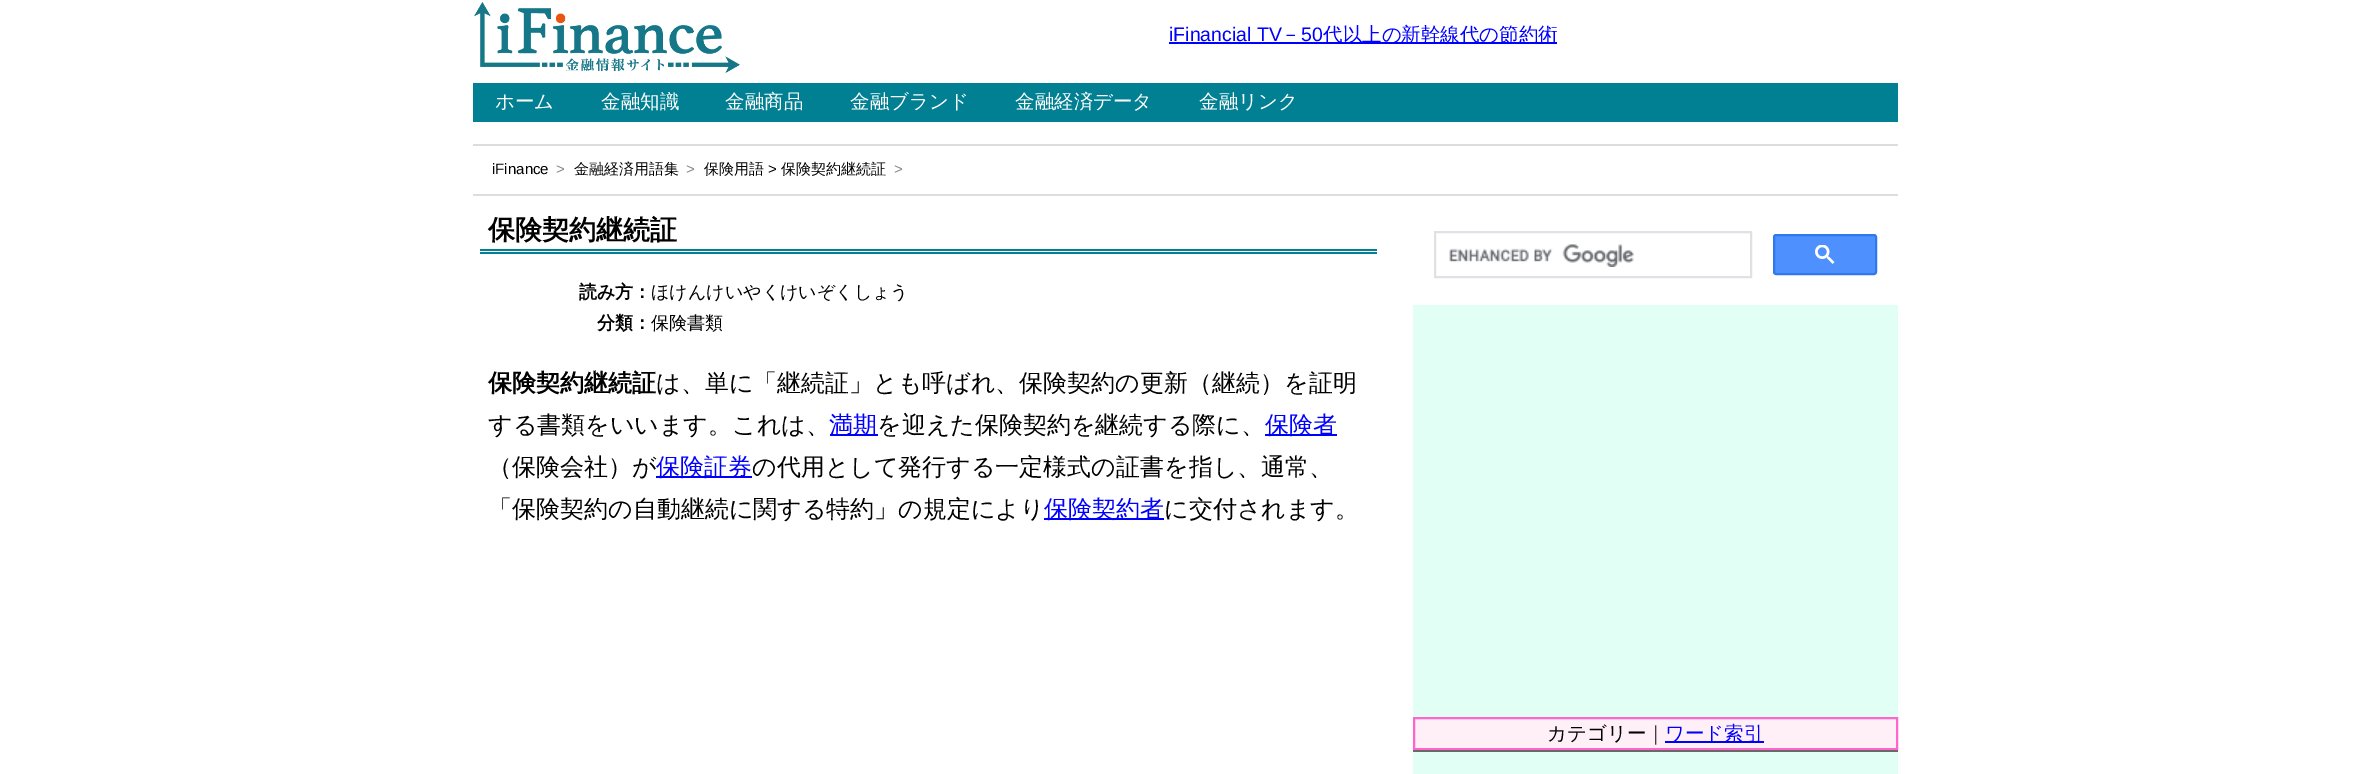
%!PS-Adobe-3.0
%%BoundingBox: 0 0 2370 774
%%LanguageLevel: 3
%%Pages: 1
%%EndComments
%%BeginProlog
/setink { 3 { 255 div 3 1 roll } repeat setrgbcolor } def
/usefont { [ exch dup neg 0 0 3 -1 roll 0 0 ] selectfont } def
/drawtext { setink usefont moveto show } def
/fillbox { setink rectfill } def
/rrect { 5 dict begin { /r /h /w /y /x } { exch def } forall
  x r add y moveto x w add y 2 copy h add r arct x w add y h add x 1 index r arct
  x y h add x y r arct x y 2 copy exch w add exch r arct closepath end } def
/drawimage { 5 dict begin { /h /w /y /x /name } { exch def } forall
  gsave x y translate w h scale
  w h 8 [w 0 0 h 0 0] name (r) file false 3 colorimage grestore end } def
%%EndProlog
%%BeginSetup
<< /PageSize [2370 774] >> setpagedevice
%%EndSetup
%%Page: 1 1
0 774 translate 1 -1 scale
4 setmiterlimit
0 0 2370 774 255 255 255 fillbox
(assets/img1.rgb) 474 1 266 73 drawimage
(iFinancial TV) 1169 41 /LiberationSans-Regular 19.5 0 0 255 drawtext
(－) 1281 41 /WenQuanYiZenHei-Medium 19.5 0 0 255 drawtext
1169 42 388 2 0 0 255 fillbox
(50) 1301 41 /LiberationSans-Regular 19.5 0 0 255 drawtext
(代以上の新幹線代の節約術) 1323 41 /WenQuanYiZenHei-Medium 19.5 0 0 255 drawtext
473 83 1425 39 0 128 146 fillbox
(ホーム) 495 108 /WenQuanYiZenHei-Medium 19.5 255 255 255 drawtext
(金融知識) 601 108 /WenQuanYiZenHei-Medium 19.5 255 255 255 drawtext
(金融商品) 725 108 /WenQuanYiZenHei-Medium 19.5 255 255 255 drawtext
(金融ブランド) 850 108 /WenQuanYiZenHei-Medium 19.5 255 255 255 drawtext
(金融経済データ) 1015 108 /WenQuanYiZenHei-Medium 19.5 255 255 255 drawtext
(金融リンク) 1199 108 /WenQuanYiZenHei-Medium 19.5 255 255 255 drawtext
473 144 1425 2 221 221 221 fillbox
473 194 1425 2 221 221 221 fillbox
(iFinance) 492 174 /LiberationSans-Regular 15 0 0 0 drawtext
(>) 556 174 /LiberationSans-Regular 15 136 136 136 drawtext
(金融経済用語集) 574 174 /WenQuanYiZenHei-Medium 15 0 0 0 drawtext
(>) 686 174 /LiberationSans-Regular 15 136 136 136 drawtext
(保険用語) 704 174 /WenQuanYiZenHei-Medium 15 0 0 0 drawtext
(>) 768 174 /LiberationSans-Regular 15 0 0 0 drawtext
(保険契約継続証) 781 174 /WenQuanYiZenHei-Medium 15 0 0 0 drawtext
(>) 894 174 /LiberationSans-Regular 15 136 136 136 drawtext
480 249 897 2 0 128 146 fillbox
480 252 897 2 0 128 146 fillbox
(保険契約継続証) 488 239 /WenQuanYiZenHei-Bold 27 0 0 0 drawtext
(読み方：) 579 298 /WenQuanYiZenHei-Bold 18 0 0 0 drawtext
(ほけんけいやくけいぞくしょう) 651 298 /WenQuanYiZenHei-Medium 18 0 0 0 drawtext
(分類：) 597 329 /WenQuanYiZenHei-Bold 18 0 0 0 drawtext
(保険書類) 651 329 /WenQuanYiZenHei-Medium 18 0 0 0 drawtext
(保険契約継続証) 488 391 /WenQuanYiZenHei-Bold 24 0 0 0 drawtext
(は、単に「継続証」とも呼ばれ、保険契約の更新（継続）を証明) 656 391 /WenQuanYiZenHei-Medium 24 0 0 0 drawtext
(する書類をいいます。これは、) 488 433 /WenQuanYiZenHei-Medium 24 0 0 0 drawtext
830 434 48 2 0 0 255 fillbox
(満期) 829 433 /WenQuanYiZenHei-Medium 24 0 0 255 drawtext
(を迎えた保険契約を継続する際に、) 877 433 /WenQuanYiZenHei-Medium 24 0 0 0 drawtext
1265 434 72 2 0 0 255 fillbox
(保険者) 1265 433 /WenQuanYiZenHei-Medium 24 0 0 255 drawtext
(（保険会社）が) 488 475 /WenQuanYiZenHei-Medium 24 0 0 0 drawtext
656 476 96 2 0 0 255 fillbox
(保険証券) 656 475 /WenQuanYiZenHei-Medium 24 0 0 255 drawtext
(の代用として発行する一定様式の証書を指し、通常、) 752 475 /WenQuanYiZenHei-Medium 24 0 0 0 drawtext
(「保険契約の自動継続に関する特約」の規定により) 488 517 /WenQuanYiZenHei-Medium 24 0 0 0 drawtext
1044 518 120 2 0 0 255 fillbox
(保険契約者) 1044 517 /WenQuanYiZenHei-Medium 24 0 0 255 drawtext
(に交付されます。) 1164 517 /WenQuanYiZenHei-Medium 24 0 0 0 drawtext
1413 305 485 469 225 255 245 fillbox
223 225 229 setink
2 setlinewidth
1435 232 316 45 rectstroke
(assets/img2.rgb) 1449 244 185 23 drawimage
77 144 254 setink
1774 235 102 39 2 rrect gsave fill grestore
48 121 237 setink
stroke
(assets/img3.rgb) 1815 245 20 19 drawimage
255 240 248 setink
1414 718 moveto 1897 718 lineto 1897 749 lineto 1414 749 lineto closepath gsave fill grestore
255 102 204 setink
stroke
(カテゴリー｜) 1547 740 /WenQuanYiZenHei-Medium 19.5 0 0 0 drawtext
1665 741 99 2 0 0 255 fillbox
(ワード索引) 1665 740 /WenQuanYiZenHei-Medium 19.5 0 0 255 drawtext
1413 750 485 2 105 105 105 fillbox
showpage
%%EOF
